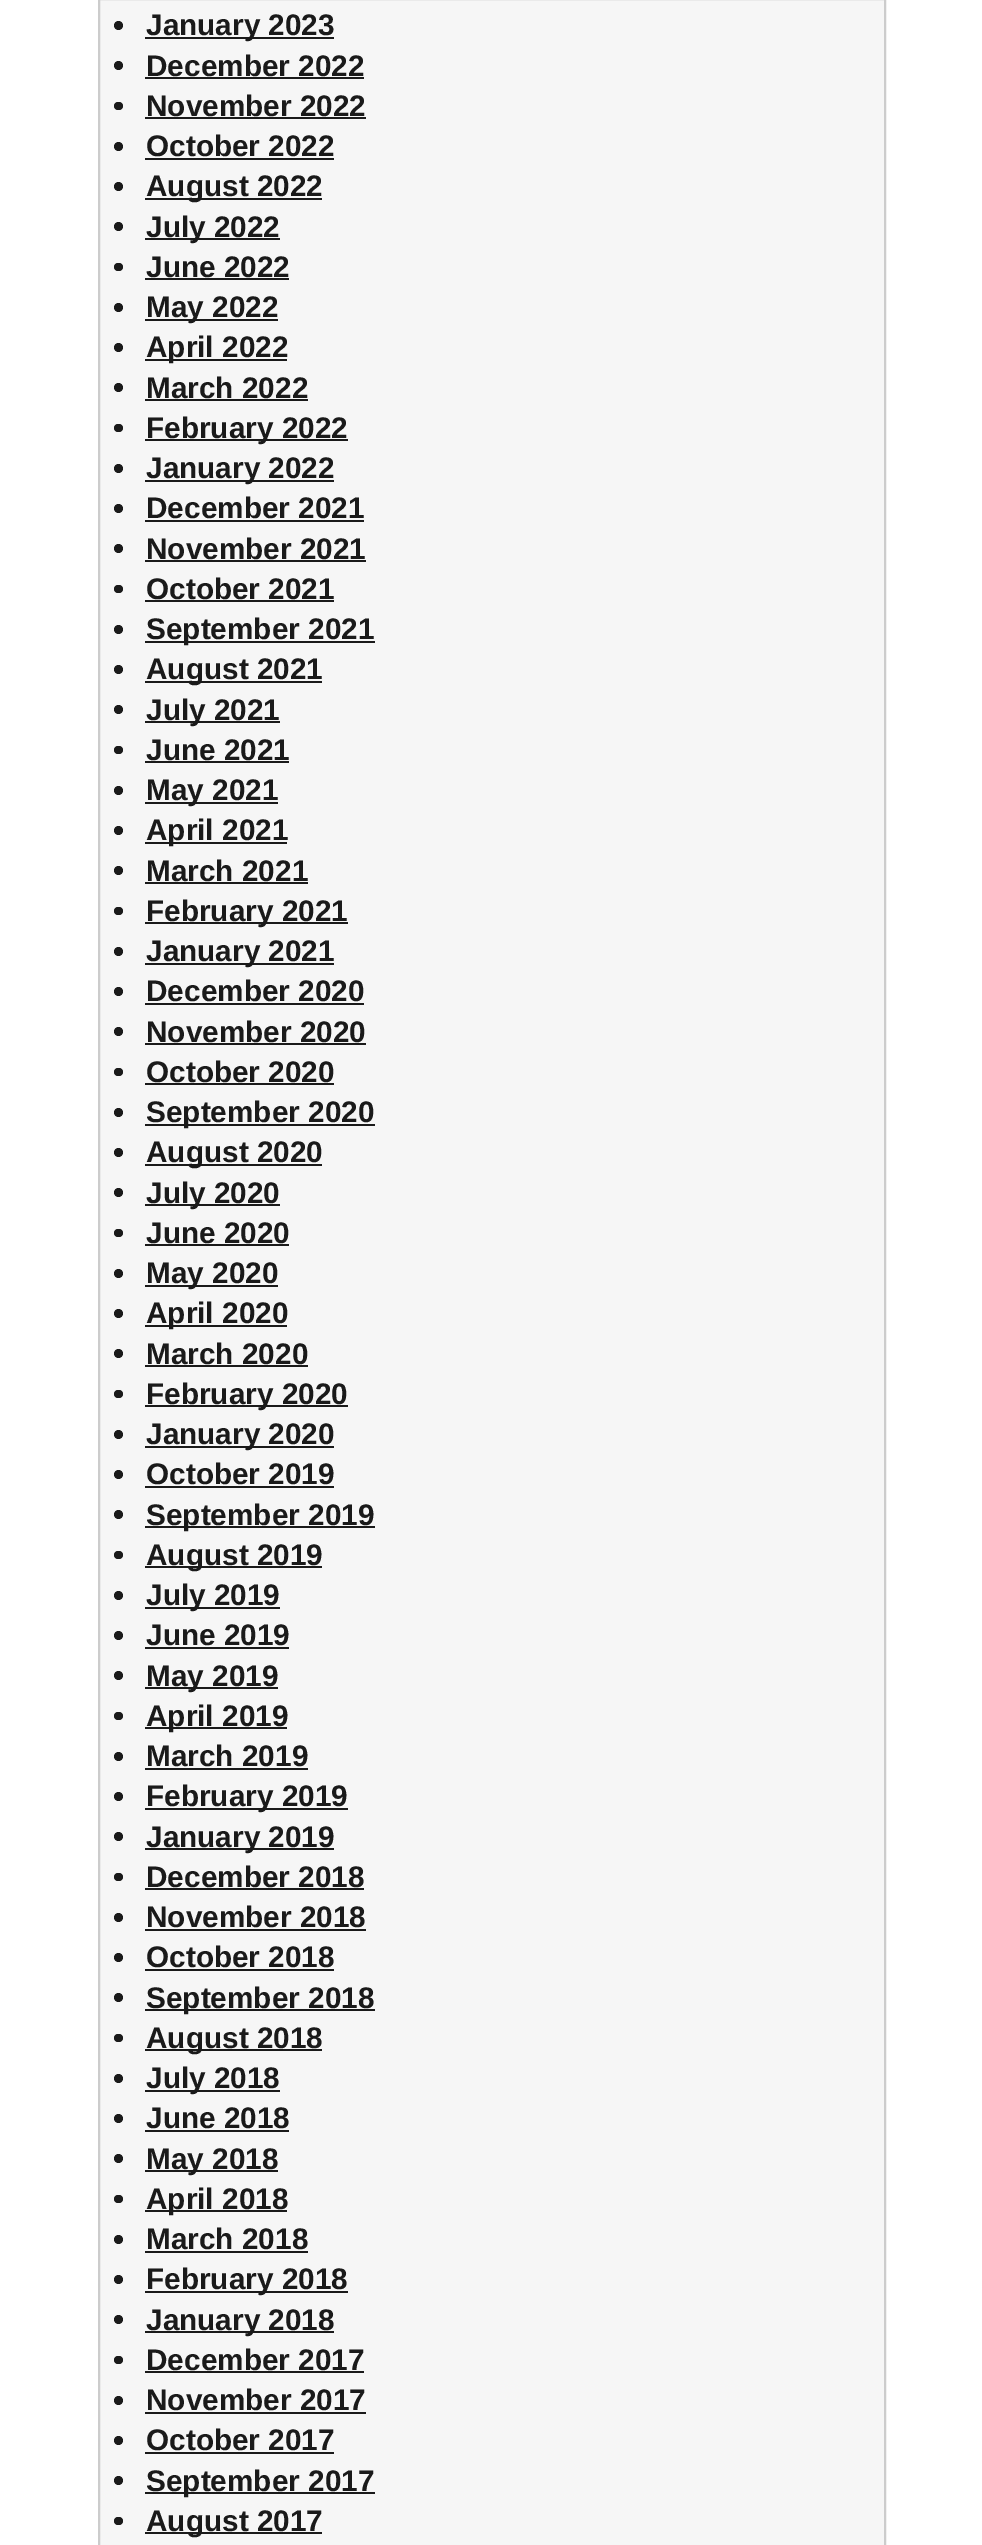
%!PS-Adobe-3.0
%%BoundingBox: 0 0 982 2545
%%LanguageLevel: 3
%%Pages: 1
%%EndComments
%%BeginProlog
/setink { 3 { 255 div 3 1 roll } repeat setrgbcolor } def
/usefont { [ exch dup neg 0 0 3 -1 roll 0 0 ] selectfont } def
/drawtext { setink usefont moveto show } def
/fillbox { setink rectfill } def
/disc { newpath 0 360 arc closepath } def
/rrect { 5 dict begin { /r /h /w /y /x } { exch def } forall
  x r add y moveto x w add y 2 copy h add r arct x w add y h add x 1 index r arct
  x y h add x y r arct x y 2 copy exch w add exch r arct closepath end } def
%%EndProlog
%%BeginSetup
<< /PageSize [982 2545] >> setpagedevice
%%EndSetup
%%Page: 1 1
0 2545 translate 1 -1 scale
4 setmiterlimit
0 0 982 2545 255 255 255 fillbox
246 246 246 setink
99 -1 moveto 885 -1 lineto 885 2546 lineto 99 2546 lineto closepath gsave fill grestore
204 204 204 setink
2 setlinewidth
stroke
26 26 26 setink
118.5 25.5 4.5 disc fill
145 37 189 2 26 26 26 fillbox
(January 2023) 146 35 /LiberationSans-Bold 29.75 26 26 26 drawtext
118.5 65.5 4.5 disc fill
(December 2022) 146 76 /LiberationSans-Bold 29.75 26 26 26 drawtext
145 77 219 2 26 26 26 fillbox
114 102 9 8 4 rrect fill
(November 2022) 146 116 /LiberationSans-Bold 29.75 26 26 26 drawtext
145 117 221 2 26 26 26 fillbox
118.5 146.5 4.5 disc fill
(October 2022) 146 156 /LiberationSans-Bold 29.75 26 26 26 drawtext
145 158 189 2 26 26 26 fillbox
118.5 186.5 4.5 disc fill
145 198 177 2 26 26 26 fillbox
(August 2022) 146 196 /LiberationSans-Bold 29.75 26 26 26 drawtext
118.5 226.5 4.5 disc fill
145 238 135 2 26 26 26 fillbox
(July 2022) 146 237 /LiberationSans-Bold 29.75 26 26 26 drawtext
114 263 9 8 4 rrect fill
(June 2022) 146 277 /LiberationSans-Bold 29.75 26 26 26 drawtext
145 278 144 2 26 26 26 fillbox
118.5 307.5 4.5 disc fill
145 319 133 2 26 26 26 fillbox
(May 2022) 146 317 /LiberationSans-Bold 29.75 26 26 26 drawtext
118.5 347.5 4.5 disc fill
145 359 142 2 26 26 26 fillbox
(April 2022) 146 357 /LiberationSans-Bold 29.75 26 26 26 drawtext
118.5 387.5 4.5 disc fill
(March 2022) 146 398 /LiberationSans-Bold 29.75 26 26 26 drawtext
145 399 163 2 26 26 26 fillbox
114 424 9 8 4 rrect fill
145 439 203 2 26 26 26 fillbox
(February 2022) 146 438 /LiberationSans-Bold 29.75 26 26 26 drawtext
118.5 468.5 4.5 disc fill
145 480 189 2 26 26 26 fillbox
(January 2022) 146 478 /LiberationSans-Bold 29.75 26 26 26 drawtext
118.5 508.5 4.5 disc fill
(December 2021) 146 518 /LiberationSans-Bold 29.75 26 26 26 drawtext
145 520 219 2 26 26 26 fillbox
118.5 548.5 4.5 disc fill
(November 2021) 146 559 /LiberationSans-Bold 29.75 26 26 26 drawtext
145 560 221 2 26 26 26 fillbox
114 585 9 8 4 rrect fill
(October 2021) 146 599 /LiberationSans-Bold 29.75 26 26 26 drawtext
145 600 189 2 26 26 26 fillbox
118.5 629.5 4.5 disc fill
145 641 230 2 26 26 26 fillbox
(September 2021) 146 639 /LiberationSans-Bold 29.75 26 26 26 drawtext
118.5 669.5 4.5 disc fill
145 681 177 2 26 26 26 fillbox
(August 2021) 146 679 /LiberationSans-Bold 29.75 26 26 26 drawtext
118.5 709.5 4.5 disc fill
145 721 135 2 26 26 26 fillbox
(July 2021) 146 720 /LiberationSans-Bold 29.75 26 26 26 drawtext
114 746 9 8 4 rrect fill
(June 2021) 146 760 /LiberationSans-Bold 29.75 26 26 26 drawtext
145 761 144 2 26 26 26 fillbox
118.5 790.5 4.5 disc fill
145 802 133 2 26 26 26 fillbox
(May 2021) 146 800 /LiberationSans-Bold 29.75 26 26 26 drawtext
118.5 830.5 4.5 disc fill
145 842 142 2 26 26 26 fillbox
(April 2021) 146 840 /LiberationSans-Bold 29.75 26 26 26 drawtext
118.5 870.5 4.5 disc fill
(March 2021) 146 881 /LiberationSans-Bold 29.75 26 26 26 drawtext
145 882 163 2 26 26 26 fillbox
114 907 9 8 4 rrect fill
145 922 203 2 26 26 26 fillbox
(February 2021) 146 921 /LiberationSans-Bold 29.75 26 26 26 drawtext
118.5 951.5 4.5 disc fill
145 963 189 2 26 26 26 fillbox
(January 2021) 146 961 /LiberationSans-Bold 29.75 26 26 26 drawtext
118.5 991.5 4.5 disc fill
(December 2020) 146 1001 /LiberationSans-Bold 29.75 26 26 26 drawtext
145 1003 219 2 26 26 26 fillbox
118.5 1031.5 4.5 disc fill
(November 2020) 146 1042 /LiberationSans-Bold 29.75 26 26 26 drawtext
145 1043 221 2 26 26 26 fillbox
114 1068 9 8 4 rrect fill
(October 2020) 146 1082 /LiberationSans-Bold 29.75 26 26 26 drawtext
145 1083 189 2 26 26 26 fillbox
118.5 1112.5 4.5 disc fill
145 1124 230 2 26 26 26 fillbox
(September 2020) 146 1122 /LiberationSans-Bold 29.75 26 26 26 drawtext
118.5 1152.5 4.5 disc fill
145 1164 177 2 26 26 26 fillbox
(August 2020) 146 1162 /LiberationSans-Bold 29.75 26 26 26 drawtext
118.5 1192.5 4.5 disc fill
145 1204 135 2 26 26 26 fillbox
(July 2020) 146 1203 /LiberationSans-Bold 29.75 26 26 26 drawtext
114 1229 9 8 4 rrect fill
(June 2020) 146 1243 /LiberationSans-Bold 29.75 26 26 26 drawtext
145 1244 144 2 26 26 26 fillbox
118.5 1273.5 4.5 disc fill
145 1285 133 2 26 26 26 fillbox
(May 2020) 146 1283 /LiberationSans-Bold 29.75 26 26 26 drawtext
118.5 1313.5 4.5 disc fill
145 1325 142 2 26 26 26 fillbox
(April 2020) 146 1323 /LiberationSans-Bold 29.75 26 26 26 drawtext
118.5 1353.5 4.5 disc fill
(March 2020) 146 1364 /LiberationSans-Bold 29.75 26 26 26 drawtext
145 1365 163 2 26 26 26 fillbox
114 1390 9 8 4 rrect fill
145 1405 203 2 26 26 26 fillbox
(February 2020) 146 1404 /LiberationSans-Bold 29.75 26 26 26 drawtext
118.5 1434.5 4.5 disc fill
145 1446 189 2 26 26 26 fillbox
(January 2020) 146 1444 /LiberationSans-Bold 29.75 26 26 26 drawtext
118.5 1474.5 4.5 disc fill
(October 2019) 146 1484 /LiberationSans-Bold 29.75 26 26 26 drawtext
145 1486 189 2 26 26 26 fillbox
118.5 1514.5 4.5 disc fill
145 1526 230 2 26 26 26 fillbox
(September 2019) 146 1525 /LiberationSans-Bold 29.75 26 26 26 drawtext
114 1551 9 8 4 rrect fill
145 1566 177 2 26 26 26 fillbox
(August 2019) 146 1565 /LiberationSans-Bold 29.75 26 26 26 drawtext
118.5 1595.5 4.5 disc fill
145 1607 135 2 26 26 26 fillbox
(July 2019) 146 1605 /LiberationSans-Bold 29.75 26 26 26 drawtext
118.5 1635.5 4.5 disc fill
(June 2019) 146 1645 /LiberationSans-Bold 29.75 26 26 26 drawtext
145 1647 144 2 26 26 26 fillbox
118.5 1675.5 4.5 disc fill
145 1687 133 2 26 26 26 fillbox
(May 2019) 146 1686 /LiberationSans-Bold 29.75 26 26 26 drawtext
114 1712 9 8 4 rrect fill
145 1727 142 2 26 26 26 fillbox
(April 2019) 146 1726 /LiberationSans-Bold 29.75 26 26 26 drawtext
118.5 1756.5 4.5 disc fill
(March 2019) 146 1766 /LiberationSans-Bold 29.75 26 26 26 drawtext
145 1768 163 2 26 26 26 fillbox
118.5 1796.5 4.5 disc fill
145 1808 203 2 26 26 26 fillbox
(February 2019) 146 1806 /LiberationSans-Bold 29.75 26 26 26 drawtext
118.5 1836.5 4.5 disc fill
145 1848 189 2 26 26 26 fillbox
(January 2019) 146 1847 /LiberationSans-Bold 29.75 26 26 26 drawtext
114 1873 9 8 4 rrect fill
(December 2018) 146 1887 /LiberationSans-Bold 29.75 26 26 26 drawtext
145 1888 219 2 26 26 26 fillbox
118.5 1917.5 4.5 disc fill
(November 2018) 146 1927 /LiberationSans-Bold 29.75 26 26 26 drawtext
145 1929 221 2 26 26 26 fillbox
118.5 1957.5 4.5 disc fill
(October 2018) 146 1967 /LiberationSans-Bold 29.75 26 26 26 drawtext
145 1969 189 2 26 26 26 fillbox
118.5 1997.5 4.5 disc fill
145 2009 230 2 26 26 26 fillbox
(September 2018) 146 2008 /LiberationSans-Bold 29.75 26 26 26 drawtext
114 2034 9 8 4 rrect fill
145 2049 177 2 26 26 26 fillbox
(August 2018) 146 2048 /LiberationSans-Bold 29.75 26 26 26 drawtext
118.5 2078.5 4.5 disc fill
145 2090 135 2 26 26 26 fillbox
(July 2018) 146 2088 /LiberationSans-Bold 29.75 26 26 26 drawtext
118.5 2118.5 4.5 disc fill
(June 2018) 146 2128 /LiberationSans-Bold 29.75 26 26 26 drawtext
145 2130 144 2 26 26 26 fillbox
118.5 2158.5 4.5 disc fill
145 2170 133 2 26 26 26 fillbox
(May 2018) 146 2169 /LiberationSans-Bold 29.75 26 26 26 drawtext
114 2195 9 8 4 rrect fill
145 2210 142 2 26 26 26 fillbox
(April 2018) 146 2209 /LiberationSans-Bold 29.75 26 26 26 drawtext
118.5 2239.5 4.5 disc fill
(March 2018) 146 2249 /LiberationSans-Bold 29.75 26 26 26 drawtext
145 2251 163 2 26 26 26 fillbox
118.5 2279.5 4.5 disc fill
145 2291 203 2 26 26 26 fillbox
(February 2018) 146 2289 /LiberationSans-Bold 29.75 26 26 26 drawtext
118.5 2319.5 4.5 disc fill
145 2331 189 2 26 26 26 fillbox
(January 2018) 146 2330 /LiberationSans-Bold 29.75 26 26 26 drawtext
114 2356 9 8 4 rrect fill
(December 2017) 146 2370 /LiberationSans-Bold 29.75 26 26 26 drawtext
145 2371 219 2 26 26 26 fillbox
118.5 2400.5 4.5 disc fill
(November 2017) 146 2410 /LiberationSans-Bold 29.75 26 26 26 drawtext
145 2412 221 2 26 26 26 fillbox
118.5 2440.5 4.5 disc fill
(October 2017) 146 2450 /LiberationSans-Bold 29.75 26 26 26 drawtext
145 2452 189 2 26 26 26 fillbox
118.5 2480.5 4.5 disc fill
145 2492 230 2 26 26 26 fillbox
(September 2017) 146 2491 /LiberationSans-Bold 29.75 26 26 26 drawtext
114 2517 9 8 4 rrect fill
145 2532 177 2 26 26 26 fillbox
(August 2017) 146 2531 /LiberationSans-Bold 29.75 26 26 26 drawtext
showpage
%%EOF
